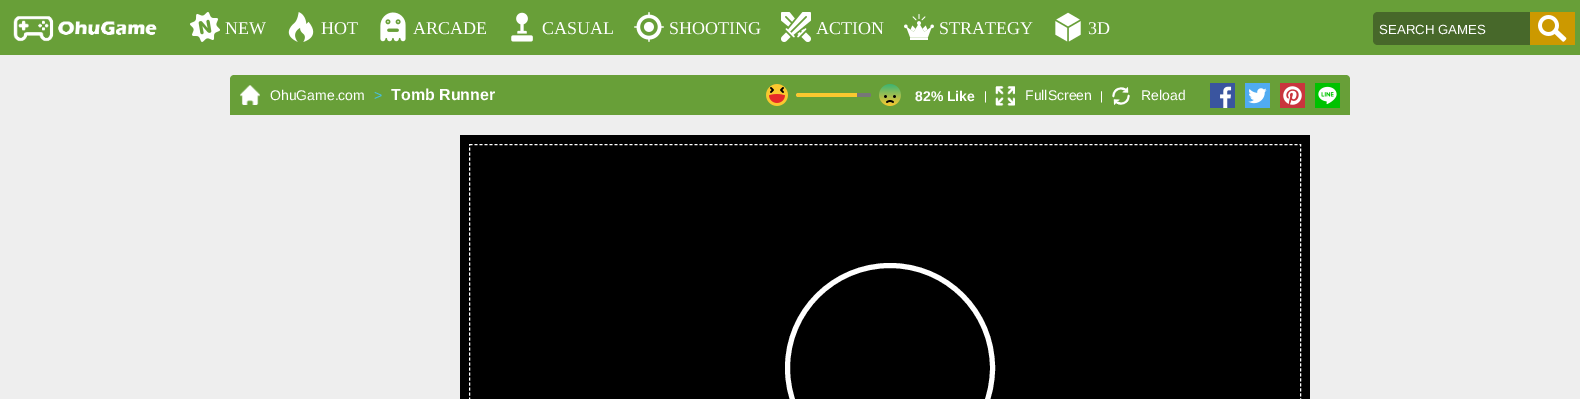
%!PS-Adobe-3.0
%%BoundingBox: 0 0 1580 399
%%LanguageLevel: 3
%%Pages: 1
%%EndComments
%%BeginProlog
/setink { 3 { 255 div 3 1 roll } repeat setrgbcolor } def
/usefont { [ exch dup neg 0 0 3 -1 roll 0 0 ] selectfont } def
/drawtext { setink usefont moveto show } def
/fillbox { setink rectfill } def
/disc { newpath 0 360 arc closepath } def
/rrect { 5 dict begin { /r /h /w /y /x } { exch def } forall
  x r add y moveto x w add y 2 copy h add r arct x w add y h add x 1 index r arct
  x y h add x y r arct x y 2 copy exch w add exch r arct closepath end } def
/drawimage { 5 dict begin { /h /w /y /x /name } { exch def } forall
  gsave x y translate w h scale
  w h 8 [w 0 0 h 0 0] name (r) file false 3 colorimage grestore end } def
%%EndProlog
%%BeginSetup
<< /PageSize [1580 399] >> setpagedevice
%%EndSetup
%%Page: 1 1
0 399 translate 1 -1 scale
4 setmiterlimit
0 0 1580 399 238 238 238 fillbox
0 0 1580 55 104 159 56 fillbox
(assets/img1.rgb) 13 16 144 26 drawimage
(assets/img2.rgb) 190 12 30 30 drawimage
(NEW) 225 34 /LiberationSerif-Regular 18 255 255 255 drawtext
(assets/img3.rgb) 288 12 26 30 drawimage
(HOT) 321 34 /LiberationSerif-Regular 18 255 255 255 drawtext
(assets/img4.rgb) 380 12 26 30 drawimage
(ARCADE) 413 34 /LiberationSerif-Regular 18 255 255 255 drawtext
(assets/img5.rgb) 511 12 22 30 drawimage
(CASUAL) 542 34 /LiberationSerif-Regular 18 255 255 255 drawtext
(assets/img6.rgb) 634 12 30 30 drawimage
(SHOOTING) 669 34 /LiberationSerif-Regular 18 255 255 255 drawtext
(assets/img7.rgb) 781 12 30 30 drawimage
(ACTION) 816 34 /LiberationSerif-Regular 18 255 255 255 drawtext
(assets/img8.rgb) 904 14 30 26 drawimage
(STRATEGY) 939 34 /LiberationSerif-Regular 18 255 255 255 drawtext
(assets/img9.rgb) 1055 12 26 30 drawimage
(3D) 1088 34 /LiberationSerif-Regular 18 255 255 255 drawtext
71 104 42 setink
1378 12 moveto 1575 12 lineto 1575 45 lineto 1378 45 lineto 1375 45 1373 43 1373 40 curveto 1373 17 lineto 1373 14 1375 12 1378 12 curveto closepath fill
(assets/img10.rgb) 1530 12 45 33 drawimage
(SEARCH GAMES) 1379 34 /LiberationSans-Regular 13.25 255 255 255 drawtext
104 159 56 setink
234 75 moveto 1346 75 lineto 1348 75 1350 77 1350 79 curveto 1350 115 lineto 230 115 lineto 230 79 lineto 230 77 232 75 234 75 curveto closepath fill
(assets/img11.rgb) 240 85 20 20 drawimage
(OhuGame.com) 270 100 /LiberationSans-Regular 14 255 255 255 drawtext
(>) 374 100 /LiberationSans-Regular 14 70 193 231 drawtext
(Tomb Runner) 391 100 /LiberationSans-Bold 16 255 255 255 drawtext
(assets/img12.rgb) 766 84 22 22 drawimage
119 119 119 setink
796 93 75 4 2 rrect fill
250 200 47 setink
798 93 moveto 857 93 lineto 857 97 lineto 798 97 lineto 797 97 796 96 796 95 curveto 796 94 797 93 798 93 curveto closepath fill
(assets/img13.rgb) 879 84 22 22 drawimage
(82% Like) 915 101 /LiberationSans-Bold 14 255 255 255 drawtext
(|) 984 100 /LiberationSans-Regular 12 255 255 255 drawtext
(assets/img14.rgb) 995 86 20 20 drawimage
(FullScreen) 1025 100 /LiberationSans-Regular 14 255 255 255 drawtext
(|) 1100 100 /LiberationSans-Regular 12 255 255 255 drawtext
(assets/img15.rgb) 1112 87 18 18 drawimage
(Reload) 1141 100 /LiberationSans-Regular 14 255 255 255 drawtext
1220 86 12 22 255 255 255 fillbox
(assets/img16.rgb) 1210 83 25 25 drawimage
(assets/img17.rgb) 1245 83 25 25 drawimage
(assets/img18.rgb) 1280 83 25 25 drawimage
(assets/img19.rgb) 1315 83 25 25 drawimage
460 135 850 264 0 0 0 fillbox
255 255 255 setink
[3 2] 0 setdash
469.5 144.5 moveto 1300.5 144.5 lineto 1300.5 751.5 lineto 469.5 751.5 lineto closepath stroke
5 setlinewidth
[] 0 setdash
890 368 102.5 disc stroke
showpage
%%EOF
